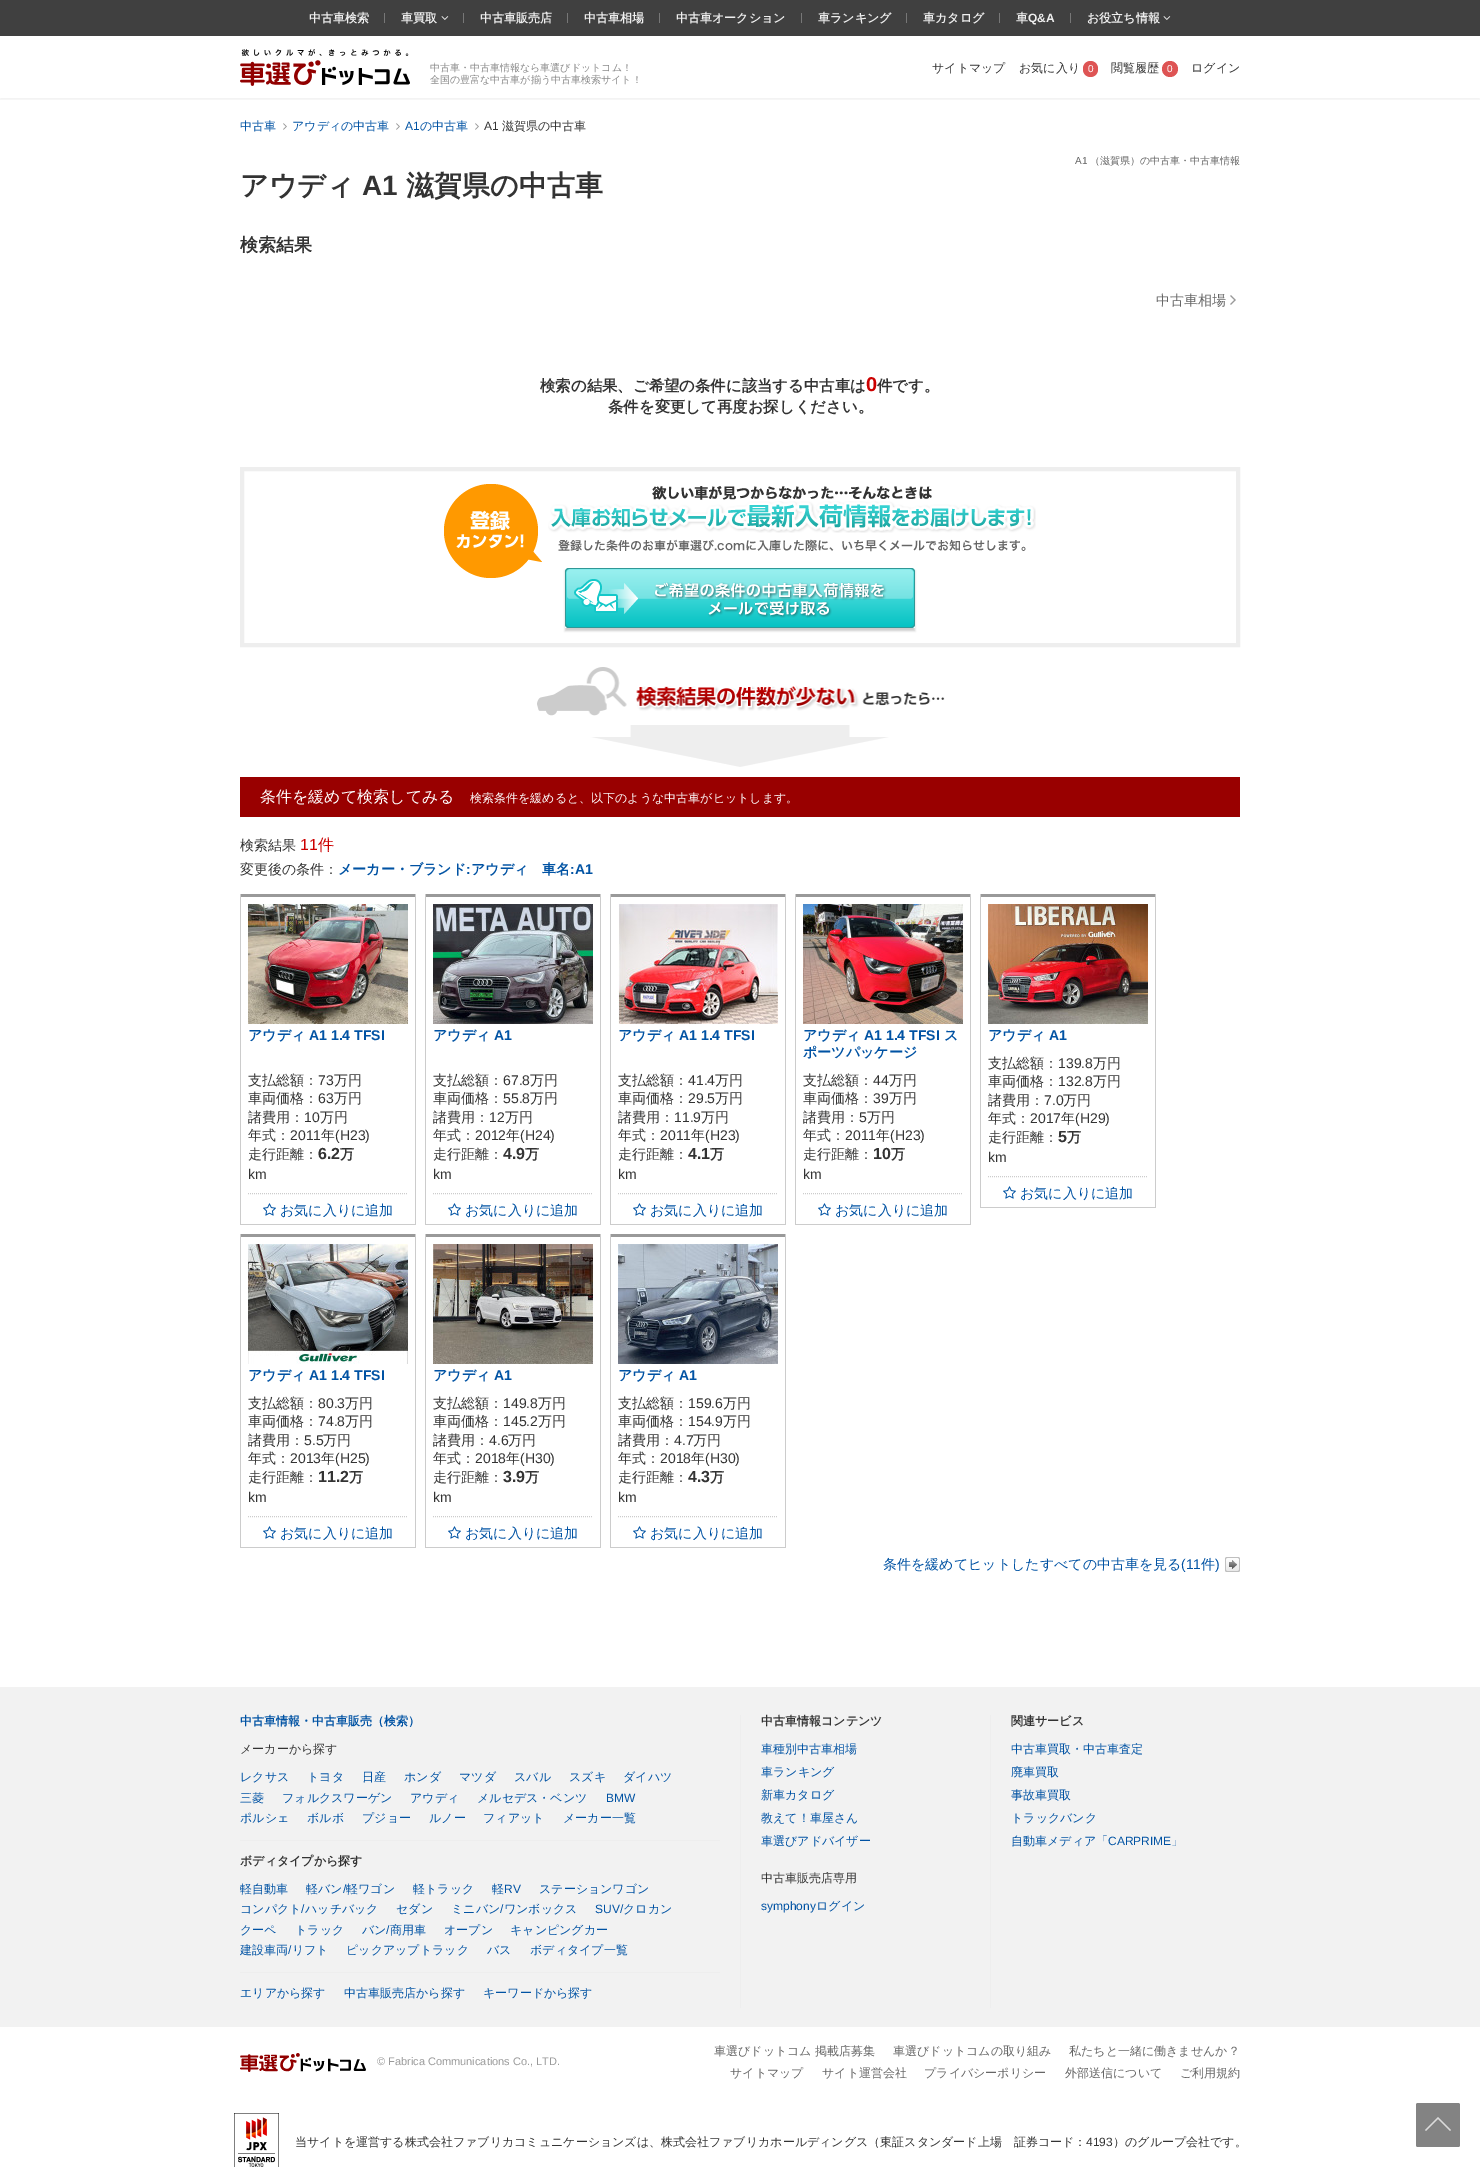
%!PS-Adobe-3.0
%%BoundingBox: 0 0 1480 2167
%%LanguageLevel: 3
%%Pages: 1
%%EndComments
%%BeginProlog
/setink { 3 { 255 div 3 1 roll } repeat setrgbcolor } def
/usefont { [ exch dup neg 0 0 3 -1 roll 0 0 ] selectfont } def
/drawtext { setink usefont moveto show } def
/fillbox { setink rectfill } def
/setalpha { dup .setfillconstantalpha .setstrokeconstantalpha } def
/disc { newpath 0 360 arc closepath } def
/rrect { 5 dict begin { /r /h /w /y /x } { exch def } forall
  x r add y moveto x w add y 2 copy h add r arct x w add y h add x 1 index r arct
  x y h add x y r arct x y 2 copy exch w add exch r arct closepath end } def
/softshadow { 12 dict begin { /a /b /q /h /w /y /x } { exch def } forall gsave /was 0 def
  9 -2 -9 { dup b mul 4 div /e exch def 1 sub .425 mul 2.718 exch exp 1 add a .99 .min exch div /now exch def
    1 1 now sub 1 was sub div sub setalpha /was now def
    w h .min e 2 mul add 0 gt { x e sub y e sub w e 2 mul add h e 2 mul add
      q e add b .6 mul add w h .min 2 div e add .min 0 .max rrect fill } if } for grestore end } def
/drawimage { 5 dict begin { /h /w /y /x /name } { exch def } forall
  gsave x y translate w h scale
  w h 8 [w 0 0 h 0 0] name (r) file false 3 colorimage grestore end } def
%%EndProlog
%%BeginSetup
<< /PageSize [1480 2167] /PageUsesTransparency true >> setpagedevice
%%EndSetup
%%Page: 1 1
0 .pushpdf14devicefilter
0 2167 translate 1 -1 scale
4 setmiterlimit
0 0 1480 2167 255 255 255 fillbox
gsave
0 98 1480 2 rectclip
0 0 0 setink
0 38 1480 62 0 1.5 0.05 softshadow
grestore
0 0 1480 36 64 64 64 fillbox
(中古車検索) 309 22 /WenQuanYiZenHei-Bold 12 238 238 238 drawtext
384 13 1 10 119 119 119 fillbox
(車買取) 401 22 /WenQuanYiZenHei-Bold 12 238 238 238 drawtext
(assets/img1.rgb) 441 16 8 4 drawimage
463 13 1 10 119 119 119 fillbox
(中古車販売店) 480 22 /WenQuanYiZenHei-Bold 12 238 238 238 drawtext
567 13 1 10 119 119 119 fillbox
(中古車相場) 584 22 /WenQuanYiZenHei-Bold 12 238 238 238 drawtext
659 13 1 10 119 119 119 fillbox
(中古車オークション) 676 22 /WenQuanYiZenHei-Bold 12 238 238 238 drawtext
801 13 1 10 119 119 119 fillbox
(車ランキング) 818 22 /WenQuanYiZenHei-Bold 12 238 238 238 drawtext
906 13 1 10 119 119 119 fillbox
(車カタログ) 923 22 /WenQuanYiZenHei-Bold 12 238 238 238 drawtext
999 13 1 10 119 119 119 fillbox
(車) 1016 22 /WenQuanYiZenHei-Bold 12 238 238 238 drawtext
(Q&A) 1028 22 /LiberationSans-Bold 12 238 238 238 drawtext
1070 13 1 10 119 119 119 fillbox
(お役立ち情報) 1087 22 /WenQuanYiZenHei-Bold 12 238 238 238 drawtext
(assets/img1.rgb) 1163 16 8 4 drawimage
(assets/img2.rgb) 240 49 170 37 drawimage
(中古車・中古車情報なら車選びドットコム！) 430 71 /WenQuanYiZenHei-Medium 10 136 136 136 drawtext
(全国の豊富な中古車が揃う中古車検索サイト！) 430 83 /WenQuanYiZenHei-Medium 10 136 136 136 drawtext
(サイトマップ) 932 72 /WenQuanYiZenHei-Medium 12 51 51 51 drawtext
(お気に入り) 1019 72 /WenQuanYiZenHei-Medium 12 51 51 51 drawtext
222 84 84 setink
1083 61 15 16 7.5 rrect fill
(0) 1088 72 /LiberationSans-Regular 10 255 255 255 drawtext
(閲覧履歴) 1111 72 /WenQuanYiZenHei-Medium 12 51 51 51 drawtext
222 84 84 setink
1170 69 8 disc fill
(0) 1167 72 /LiberationSans-Regular 10 255 255 255 drawtext
(ログイン) 1191 72 /WenQuanYiZenHei-Medium 12 51 51 51 drawtext
(中古車) 240 130 /WenQuanYiZenHei-Medium 12 0 82 163 drawtext
(assets/img3.rgb) 283 123 4 7 drawimage
(アウディの中古車) 292 130 /WenQuanYiZenHei-Medium 12 0 82 163 drawtext
(assets/img3.rgb) 396 123 4 7 drawimage
(A1) 405 130 /LiberationSans-Regular 12 0 82 163 drawtext
(の中古車) 420 130 /WenQuanYiZenHei-Medium 12 0 82 163 drawtext
(assets/img3.rgb) 475 123 4 7 drawimage
(A1) 484 130 /LiberationSans-Regular 12 51 51 51 drawtext
(滋賀県の中古車) 502 130 /WenQuanYiZenHei-Medium 12 51 51 51 drawtext
(A1) 1075 164 /LiberationSans-Regular 10 102 102 102 drawtext
(（滋賀県）の中古車・中古車情報) 1090 164 /WenQuanYiZenHei-Medium 10 102 102 102 drawtext
(アウディ) 240 195 /WenQuanYiZenHei-Bold 28 51 51 51 drawtext
(A1) 362 195 /LiberationSans-Bold 28 51 51 51 drawtext
(滋賀県の中古車) 406 195 /WenQuanYiZenHei-Bold 28 51 51 51 drawtext
(検索結果) 240 251 /WenQuanYiZenHei-Bold 18 51 51 51 drawtext
(中古車相場) 1156 305 /WenQuanYiZenHei-Medium 14 102 102 102 drawtext
(assets/img4.rgb) 1230 295 6 10 drawimage
(検索の結果、ご希望の条件に該当する中古車は) 540 391 /WenQuanYiZenHei-Bold 15.4 51 51 51 drawtext
(0) 866 391 /LiberationSans-Bold 20 204 0 0 drawtext
(件です。) 877 391 /WenQuanYiZenHei-Bold 15.4 51 51 51 drawtext
(条件を変更して再度お探しください。) 608 412 /WenQuanYiZenHei-Bold 15.4 51 51 51 drawtext
238 238 238 setink
4 setlinewidth
242 469 996 176 rectstroke
(assets/img5.rgb) 444 484 592 94 drawimage
204 204 204 setink
565 571 350 60 0 1 1 softshadow
(assets/img6.rgb) 565 568 350 60 drawimage
(assets/img7.rgb) 537 667 408 100 drawimage
240 777 1000 40 153 0 0 fillbox
(条件を緩めて検索してみる) 260 802 /WenQuanYiZenHei-Medium 16 255 255 255 drawtext
(検索条件を緩めると、以下のような中古車がヒットします。) 470 802 /WenQuanYiZenHei-Medium 12 255 255 255 drawtext
(検索結果) 240 850 /WenQuanYiZenHei-Medium 14 51 51 51 drawtext
(11) 300 850 /LiberationSans-Regular 16 204 0 0 drawtext
(件) 318 850 /WenQuanYiZenHei-Medium 16 204 0 0 drawtext
(変更後の条件：) 240 874 /WenQuanYiZenHei-Medium 14 51 51 51 drawtext
(メーカー・ブランド) 338 874 /WenQuanYiZenHei-Bold 14 0 82 163 drawtext
(:) 466 874 /LiberationSans-Bold 14 0 82 163 drawtext
(アウディ　車名) 471 874 /WenQuanYiZenHei-Bold 14 0 82 163 drawtext
(:A1) 570 874 /LiberationSans-Bold 14 0 82 163 drawtext
240 894 176 3 153 153 153 fillbox
415 894 1 331 204 204 204 fillbox
240 1224 176 1 204 204 204 fillbox
240 894 1 331 204 204 204 fillbox
(assets/img8.rgb) 248 904 160 120 drawimage
(アウディ) 248 1040 /WenQuanYiZenHei-Bold 14 0 82 163 drawtext
(A1 1.4 TFSI) 309 1040 /LiberationSans-Bold 14 0 82 163 drawtext
(支払総額：) 248 1085 /WenQuanYiZenHei-Medium 14 51 51 51 drawtext
(73) 318 1085 /LiberationSans-Regular 14 51 51 51 drawtext
(万円) 334 1085 /WenQuanYiZenHei-Medium 14 51 51 51 drawtext
(車両価格：) 248 1103 /WenQuanYiZenHei-Medium 14 51 51 51 drawtext
(63) 318 1103 /LiberationSans-Regular 14 51 51 51 drawtext
(万円) 334 1103 /WenQuanYiZenHei-Medium 14 51 51 51 drawtext
(諸費用：) 248 1122 /WenQuanYiZenHei-Medium 14 51 51 51 drawtext
(10) 304 1122 /LiberationSans-Regular 14 51 51 51 drawtext
(万円) 320 1122 /WenQuanYiZenHei-Medium 14 51 51 51 drawtext
(年式：) 248 1140 /WenQuanYiZenHei-Medium 14 51 51 51 drawtext
(2011) 290 1140 /LiberationSans-Regular 14 51 51 51 drawtext
(年) 321 1140 /WenQuanYiZenHei-Medium 14 51 51 51 drawtext
(\(H23\)) 335 1140 /LiberationSans-Regular 14 51 51 51 drawtext
(走行距離：) 248 1159 /WenQuanYiZenHei-Medium 14 51 51 51 drawtext
(6.2) 318 1159 /LiberationSans-Bold 16 51 51 51 drawtext
(万) 340 1159 /WenQuanYiZenHei-Bold 14 51 51 51 drawtext
(km) 248 1179 /LiberationSans-Regular 14 51 51 51 drawtext
204 204 204 setink
1 setlinewidth
[1 1] 0 setdash
248 1193.5 moveto 408 1193.5 lineto stroke
(assets/img9.rgb) 263 1203 13 13 drawimage
(お気に入りに追加) 280 1215 /WenQuanYiZenHei-Medium 14 0 82 163 drawtext
425 894 176 3 153 153 153 fillbox
600 894 1 331 204 204 204 fillbox
425 1224 176 1 204 204 204 fillbox
425 894 1 331 204 204 204 fillbox
(assets/img10.rgb) 433 904 160 120 drawimage
(アウディ) 433 1040 /WenQuanYiZenHei-Bold 14 0 82 163 drawtext
(A1) 494 1040 /LiberationSans-Bold 14 0 82 163 drawtext
(支払総額：) 433 1085 /WenQuanYiZenHei-Medium 14 51 51 51 drawtext
(67.8) 503 1085 /LiberationSans-Regular 14 51 51 51 drawtext
(万円) 530 1085 /WenQuanYiZenHei-Medium 14 51 51 51 drawtext
(車両価格：) 433 1103 /WenQuanYiZenHei-Medium 14 51 51 51 drawtext
(55.8) 503 1103 /LiberationSans-Regular 14 51 51 51 drawtext
(万円) 530 1103 /WenQuanYiZenHei-Medium 14 51 51 51 drawtext
(諸費用：) 433 1122 /WenQuanYiZenHei-Medium 14 51 51 51 drawtext
(12) 489 1122 /LiberationSans-Regular 14 51 51 51 drawtext
(万円) 505 1122 /WenQuanYiZenHei-Medium 14 51 51 51 drawtext
(年式：) 433 1140 /WenQuanYiZenHei-Medium 14 51 51 51 drawtext
(2012) 475 1140 /LiberationSans-Regular 14 51 51 51 drawtext
(年) 506 1140 /WenQuanYiZenHei-Medium 14 51 51 51 drawtext
(\(H24\)) 520 1140 /LiberationSans-Regular 14 51 51 51 drawtext
(走行距離：) 433 1159 /WenQuanYiZenHei-Medium 14 51 51 51 drawtext
(4.9) 503 1159 /LiberationSans-Bold 16 51 51 51 drawtext
(万) 525 1159 /WenQuanYiZenHei-Bold 14 51 51 51 drawtext
(km) 433 1179 /LiberationSans-Regular 14 51 51 51 drawtext
204 204 204 setink
433 1193.5 moveto 593 1193.5 lineto stroke
(assets/img9.rgb) 448 1203 13 13 drawimage
(お気に入りに追加) 465 1215 /WenQuanYiZenHei-Medium 14 0 82 163 drawtext
610 894 176 3 153 153 153 fillbox
785 894 1 331 204 204 204 fillbox
610 1224 176 1 204 204 204 fillbox
610 894 1 331 204 204 204 fillbox
(assets/img11.rgb) 618 904 160 120 drawimage
(アウディ) 618 1040 /WenQuanYiZenHei-Bold 14 0 82 163 drawtext
(A1 1.4 TFSI) 679 1040 /LiberationSans-Bold 14 0 82 163 drawtext
(支払総額：) 618 1085 /WenQuanYiZenHei-Medium 14 51 51 51 drawtext
(41.4) 688 1085 /LiberationSans-Regular 14 51 51 51 drawtext
(万円) 715 1085 /WenQuanYiZenHei-Medium 14 51 51 51 drawtext
(車両価格：) 618 1103 /WenQuanYiZenHei-Medium 14 51 51 51 drawtext
(29.5) 688 1103 /LiberationSans-Regular 14 51 51 51 drawtext
(万円) 715 1103 /WenQuanYiZenHei-Medium 14 51 51 51 drawtext
(諸費用：) 618 1122 /WenQuanYiZenHei-Medium 14 51 51 51 drawtext
(11.9) 674 1122 /LiberationSans-Regular 14 51 51 51 drawtext
(万円) 701 1122 /WenQuanYiZenHei-Medium 14 51 51 51 drawtext
(年式：) 618 1140 /WenQuanYiZenHei-Medium 14 51 51 51 drawtext
(2011) 660 1140 /LiberationSans-Regular 14 51 51 51 drawtext
(年) 691 1140 /WenQuanYiZenHei-Medium 14 51 51 51 drawtext
(\(H23\)) 705 1140 /LiberationSans-Regular 14 51 51 51 drawtext
(走行距離：) 618 1159 /WenQuanYiZenHei-Medium 14 51 51 51 drawtext
(4.1) 688 1159 /LiberationSans-Bold 16 51 51 51 drawtext
(万) 710 1159 /WenQuanYiZenHei-Bold 14 51 51 51 drawtext
(km) 618 1179 /LiberationSans-Regular 14 51 51 51 drawtext
204 204 204 setink
618 1193.5 moveto 778 1193.5 lineto stroke
(assets/img9.rgb) 633 1203 13 13 drawimage
(お気に入りに追加) 650 1215 /WenQuanYiZenHei-Medium 14 0 82 163 drawtext
795 894 176 3 153 153 153 fillbox
970 894 1 331 204 204 204 fillbox
795 1224 176 1 204 204 204 fillbox
795 894 1 331 204 204 204 fillbox
(assets/img12.rgb) 803 904 160 120 drawimage
(アウディ) 803 1040 /WenQuanYiZenHei-Bold 14 0 82 163 drawtext
(A1 1.4 TFSI) 864 1040 /LiberationSans-Bold 14 0 82 163 drawtext
(ス) 944 1040 /WenQuanYiZenHei-Bold 14 0 82 163 drawtext
(ポーツパッケージ) 803 1057 /WenQuanYiZenHei-Bold 14 0 82 163 drawtext
(支払総額：) 803 1085 /WenQuanYiZenHei-Medium 14 51 51 51 drawtext
(44) 873 1085 /LiberationSans-Regular 14 51 51 51 drawtext
(万円) 889 1085 /WenQuanYiZenHei-Medium 14 51 51 51 drawtext
(車両価格：) 803 1103 /WenQuanYiZenHei-Medium 14 51 51 51 drawtext
(39) 873 1103 /LiberationSans-Regular 14 51 51 51 drawtext
(万円) 889 1103 /WenQuanYiZenHei-Medium 14 51 51 51 drawtext
(諸費用：) 803 1122 /WenQuanYiZenHei-Medium 14 51 51 51 drawtext
(5) 859 1122 /LiberationSans-Regular 14 51 51 51 drawtext
(万円) 867 1122 /WenQuanYiZenHei-Medium 14 51 51 51 drawtext
(年式：) 803 1140 /WenQuanYiZenHei-Medium 14 51 51 51 drawtext
(2011) 845 1140 /LiberationSans-Regular 14 51 51 51 drawtext
(年) 876 1140 /WenQuanYiZenHei-Medium 14 51 51 51 drawtext
(\(H23\)) 890 1140 /LiberationSans-Regular 14 51 51 51 drawtext
(走行距離：) 803 1159 /WenQuanYiZenHei-Medium 14 51 51 51 drawtext
(10) 873 1159 /LiberationSans-Bold 16 51 51 51 drawtext
(万) 891 1159 /WenQuanYiZenHei-Bold 14 51 51 51 drawtext
(km) 803 1179 /LiberationSans-Regular 14 51 51 51 drawtext
204 204 204 setink
803 1193.5 moveto 963 1193.5 lineto stroke
(assets/img9.rgb) 818 1203 13 13 drawimage
(お気に入りに追加) 835 1215 /WenQuanYiZenHei-Medium 14 0 82 163 drawtext
980 894 176 3 153 153 153 fillbox
1155 894 1 314 204 204 204 fillbox
980 1207 176 1 204 204 204 fillbox
980 894 1 314 204 204 204 fillbox
(assets/img13.rgb) 988 904 160 120 drawimage
(アウディ) 988 1040 /WenQuanYiZenHei-Bold 14 0 82 163 drawtext
(A1) 1049 1040 /LiberationSans-Bold 14 0 82 163 drawtext
(支払総額：) 988 1068 /WenQuanYiZenHei-Medium 14 51 51 51 drawtext
(139.8) 1058 1068 /LiberationSans-Regular 14 51 51 51 drawtext
(万円) 1093 1068 /WenQuanYiZenHei-Medium 14 51 51 51 drawtext
(車両価格：) 988 1086 /WenQuanYiZenHei-Medium 14 51 51 51 drawtext
(132.8) 1058 1086 /LiberationSans-Regular 14 51 51 51 drawtext
(万円) 1093 1086 /WenQuanYiZenHei-Medium 14 51 51 51 drawtext
(諸費用：) 988 1105 /WenQuanYiZenHei-Medium 14 51 51 51 drawtext
(7.0) 1044 1105 /LiberationSans-Regular 14 51 51 51 drawtext
(万円) 1063 1105 /WenQuanYiZenHei-Medium 14 51 51 51 drawtext
(年式：) 988 1123 /WenQuanYiZenHei-Medium 14 51 51 51 drawtext
(2017) 1030 1123 /LiberationSans-Regular 14 51 51 51 drawtext
(年) 1061 1123 /WenQuanYiZenHei-Medium 14 51 51 51 drawtext
(\(H29\)) 1075 1123 /LiberationSans-Regular 14 51 51 51 drawtext
(走行距離：) 988 1142 /WenQuanYiZenHei-Medium 14 51 51 51 drawtext
(5) 1058 1142 /LiberationSans-Bold 16 51 51 51 drawtext
(万) 1067 1142 /WenQuanYiZenHei-Bold 14 51 51 51 drawtext
(km) 988 1162 /LiberationSans-Regular 14 51 51 51 drawtext
204 204 204 setink
988 1176.5 moveto 1148 1176.5 lineto stroke
(assets/img9.rgb) 1003 1186 13 13 drawimage
(お気に入りに追加) 1020 1198 /WenQuanYiZenHei-Medium 14 0 82 163 drawtext
240 1234 176 3 153 153 153 fillbox
415 1234 1 314 204 204 204 fillbox
240 1547 176 1 204 204 204 fillbox
240 1234 1 314 204 204 204 fillbox
(assets/img14.rgb) 248 1244 160 120 drawimage
(アウディ) 248 1380 /WenQuanYiZenHei-Bold 14 0 82 163 drawtext
(A1 1.4 TFSI) 309 1380 /LiberationSans-Bold 14 0 82 163 drawtext
(支払総額：) 248 1408 /WenQuanYiZenHei-Medium 14 51 51 51 drawtext
(80.3) 318 1408 /LiberationSans-Regular 14 51 51 51 drawtext
(万円) 345 1408 /WenQuanYiZenHei-Medium 14 51 51 51 drawtext
(車両価格：) 248 1426 /WenQuanYiZenHei-Medium 14 51 51 51 drawtext
(74.8) 318 1426 /LiberationSans-Regular 14 51 51 51 drawtext
(万円) 345 1426 /WenQuanYiZenHei-Medium 14 51 51 51 drawtext
(諸費用：) 248 1445 /WenQuanYiZenHei-Medium 14 51 51 51 drawtext
(5.5) 304 1445 /LiberationSans-Regular 14 51 51 51 drawtext
(万円) 323 1445 /WenQuanYiZenHei-Medium 14 51 51 51 drawtext
(年式：) 248 1463 /WenQuanYiZenHei-Medium 14 51 51 51 drawtext
(2013) 290 1463 /LiberationSans-Regular 14 51 51 51 drawtext
(年) 321 1463 /WenQuanYiZenHei-Medium 14 51 51 51 drawtext
(\(H25\)) 335 1463 /LiberationSans-Regular 14 51 51 51 drawtext
(走行距離：) 248 1482 /WenQuanYiZenHei-Medium 14 51 51 51 drawtext
(11.2) 318 1482 /LiberationSans-Bold 16 51 51 51 drawtext
(万) 349 1482 /WenQuanYiZenHei-Bold 14 51 51 51 drawtext
(km) 248 1502 /LiberationSans-Regular 14 51 51 51 drawtext
204 204 204 setink
248 1516.5 moveto 408 1516.5 lineto stroke
(assets/img9.rgb) 263 1526 13 13 drawimage
(お気に入りに追加) 280 1538 /WenQuanYiZenHei-Medium 14 0 82 163 drawtext
425 1234 176 3 153 153 153 fillbox
600 1234 1 314 204 204 204 fillbox
425 1547 176 1 204 204 204 fillbox
425 1234 1 314 204 204 204 fillbox
(assets/img15.rgb) 433 1244 160 120 drawimage
(アウディ) 433 1380 /WenQuanYiZenHei-Bold 14 0 82 163 drawtext
(A1) 494 1380 /LiberationSans-Bold 14 0 82 163 drawtext
(支払総額：) 433 1408 /WenQuanYiZenHei-Medium 14 51 51 51 drawtext
(149.8) 503 1408 /LiberationSans-Regular 14 51 51 51 drawtext
(万円) 538 1408 /WenQuanYiZenHei-Medium 14 51 51 51 drawtext
(車両価格：) 433 1426 /WenQuanYiZenHei-Medium 14 51 51 51 drawtext
(145.2) 503 1426 /LiberationSans-Regular 14 51 51 51 drawtext
(万円) 538 1426 /WenQuanYiZenHei-Medium 14 51 51 51 drawtext
(諸費用：) 433 1445 /WenQuanYiZenHei-Medium 14 51 51 51 drawtext
(4.6) 489 1445 /LiberationSans-Regular 14 51 51 51 drawtext
(万円) 508 1445 /WenQuanYiZenHei-Medium 14 51 51 51 drawtext
(年式：) 433 1463 /WenQuanYiZenHei-Medium 14 51 51 51 drawtext
(2018) 475 1463 /LiberationSans-Regular 14 51 51 51 drawtext
(年) 506 1463 /WenQuanYiZenHei-Medium 14 51 51 51 drawtext
(\(H30\)) 520 1463 /LiberationSans-Regular 14 51 51 51 drawtext
(走行距離：) 433 1482 /WenQuanYiZenHei-Medium 14 51 51 51 drawtext
(3.9) 503 1482 /LiberationSans-Bold 16 51 51 51 drawtext
(万) 525 1482 /WenQuanYiZenHei-Bold 14 51 51 51 drawtext
(km) 433 1502 /LiberationSans-Regular 14 51 51 51 drawtext
204 204 204 setink
433 1516.5 moveto 593 1516.5 lineto stroke
(assets/img9.rgb) 448 1526 13 13 drawimage
(お気に入りに追加) 465 1538 /WenQuanYiZenHei-Medium 14 0 82 163 drawtext
610 1234 176 3 153 153 153 fillbox
785 1234 1 314 204 204 204 fillbox
610 1547 176 1 204 204 204 fillbox
610 1234 1 314 204 204 204 fillbox
(assets/img16.rgb) 618 1244 160 120 drawimage
(アウディ) 618 1380 /WenQuanYiZenHei-Bold 14 0 82 163 drawtext
(A1) 679 1380 /LiberationSans-Bold 14 0 82 163 drawtext
(支払総額：) 618 1408 /WenQuanYiZenHei-Medium 14 51 51 51 drawtext
(159.6) 688 1408 /LiberationSans-Regular 14 51 51 51 drawtext
(万円) 723 1408 /WenQuanYiZenHei-Medium 14 51 51 51 drawtext
(車両価格：) 618 1426 /WenQuanYiZenHei-Medium 14 51 51 51 drawtext
(154.9) 688 1426 /LiberationSans-Regular 14 51 51 51 drawtext
(万円) 723 1426 /WenQuanYiZenHei-Medium 14 51 51 51 drawtext
(諸費用：) 618 1445 /WenQuanYiZenHei-Medium 14 51 51 51 drawtext
(4.7) 674 1445 /LiberationSans-Regular 14 51 51 51 drawtext
(万円) 693 1445 /WenQuanYiZenHei-Medium 14 51 51 51 drawtext
(年式：) 618 1463 /WenQuanYiZenHei-Medium 14 51 51 51 drawtext
(2018) 660 1463 /LiberationSans-Regular 14 51 51 51 drawtext
(年) 691 1463 /WenQuanYiZenHei-Medium 14 51 51 51 drawtext
(\(H30\)) 705 1463 /LiberationSans-Regular 14 51 51 51 drawtext
(走行距離：) 618 1482 /WenQuanYiZenHei-Medium 14 51 51 51 drawtext
(4.3) 688 1482 /LiberationSans-Bold 16 51 51 51 drawtext
(万) 710 1482 /WenQuanYiZenHei-Bold 14 51 51 51 drawtext
(km) 618 1502 /LiberationSans-Regular 14 51 51 51 drawtext
204 204 204 setink
618 1516.5 moveto 778 1516.5 lineto stroke
(assets/img9.rgb) 633 1526 13 13 drawimage
(お気に入りに追加) 650 1538 /WenQuanYiZenHei-Medium 14 0 82 163 drawtext
(条件を緩めてヒットしたすべての中古車を見る) 883 1569 /WenQuanYiZenHei-Medium 14 0 82 163 drawtext
(\(11) 1181 1569 /LiberationSans-Regular 14 0 82 163 drawtext
(件) 1201 1569 /WenQuanYiZenHei-Medium 14 0 82 163 drawtext
(\)) 1215 1569 /LiberationSans-Regular 14 0 82 163 drawtext
(assets/img17.rgb) 1225 1557 15 15 drawimage
0 1687 1480 340 242 242 242 fillbox
(中古車情報・中古車販売（検索）) 240 1725 /WenQuanYiZenHei-Bold 12 0 82 163 drawtext
240 1840 480 1 238 238 238 fillbox
(メーカーから探す) 240 1753 /WenQuanYiZenHei-Medium 12 51 51 51 drawtext
(レクサス) 240 1781 /WenQuanYiZenHei-Medium 12 0 82 163 drawtext
(トヨタ) 307 1781 /WenQuanYiZenHei-Medium 12 0 82 163 drawtext
(日産) 362 1781 /WenQuanYiZenHei-Medium 12 0 82 163 drawtext
(ホンダ) 404 1781 /WenQuanYiZenHei-Medium 12 0 82 163 drawtext
(マツダ) 459 1781 /WenQuanYiZenHei-Medium 12 0 82 163 drawtext
(スバル) 514 1781 /WenQuanYiZenHei-Medium 12 0 82 163 drawtext
(スズキ) 569 1781 /WenQuanYiZenHei-Medium 12 0 82 163 drawtext
(ダイハツ) 623 1781 /WenQuanYiZenHei-Medium 12 0 82 163 drawtext
(三菱) 240 1802 /WenQuanYiZenHei-Medium 12 0 82 163 drawtext
(フォルクスワーゲン) 282 1802 /WenQuanYiZenHei-Medium 12 0 82 163 drawtext
(アウディ) 410 1802 /WenQuanYiZenHei-Medium 12 0 82 163 drawtext
(メルセデス・ベンツ) 477 1802 /WenQuanYiZenHei-Medium 12 0 82 163 drawtext
(BMW) 606 1802 /LiberationSans-Regular 12 0 82 163 drawtext
(ポルシェ) 240 1822 /WenQuanYiZenHei-Medium 12 0 82 163 drawtext
(ボルボ) 307 1822 /WenQuanYiZenHei-Medium 12 0 82 163 drawtext
(プジョー) 362 1822 /WenQuanYiZenHei-Medium 12 0 82 163 drawtext
(ルノー) 429 1822 /WenQuanYiZenHei-Medium 12 0 82 163 drawtext
(フィアット) 483 1822 /WenQuanYiZenHei-Medium 12 0 82 163 drawtext
(メーカー一覧) 563 1822 /WenQuanYiZenHei-Medium 12 0 82 163 drawtext
240 1972 480 1 238 238 238 fillbox
(ボディタイプから探す) 240 1865 /WenQuanYiZenHei-Bold 12 51 51 51 drawtext
(軽自動車) 240 1893 /WenQuanYiZenHei-Medium 12 0 82 163 drawtext
(軽バン 軽ワゴン) 306 1893 /WenQuanYiZenHei-Medium 12 0 82 163 drawtext
(/) 343 1893 /LiberationSans-Regular 12 0 82 163 drawtext
(軽トラック) 413 1893 /WenQuanYiZenHei-Medium 12 0 82 163 drawtext
(軽) 492 1893 /WenQuanYiZenHei-Medium 12 0 82 163 drawtext
(RV) 504 1893 /LiberationSans-Regular 12 0 82 163 drawtext
(ステーションワゴン) 539 1893 /WenQuanYiZenHei-Medium 12 0 82 163 drawtext
(コンパクト) 240 1913 /WenQuanYiZenHei-Medium 12 0 82 163 drawtext
(/) 301 1913 /LiberationSans-Regular 12 0 82 163 drawtext
(ハッチバック) 305 1913 /WenQuanYiZenHei-Medium 12 0 82 163 drawtext
(セダン) 396 1913 /WenQuanYiZenHei-Medium 12 0 82 163 drawtext
(ミニバン ワンボックス) 451 1913 /WenQuanYiZenHei-Medium 12 0 82 163 drawtext
(/) 500 1913 /LiberationSans-Regular 12 0 82 163 drawtext
(SUV/) 595 1913 /LiberationSans-Regular 12 0 82 163 drawtext
(クロカン) 623 1913 /WenQuanYiZenHei-Medium 12 0 82 163 drawtext
(クーペ) 240 1934 /WenQuanYiZenHei-Medium 12 0 82 163 drawtext
(トラック) 295 1934 /WenQuanYiZenHei-Medium 12 0 82 163 drawtext
(バン) 362 1934 /WenQuanYiZenHei-Medium 12 0 82 163 drawtext
(/) 386 1934 /LiberationSans-Regular 12 0 82 163 drawtext
(商用車) 390 1934 /WenQuanYiZenHei-Medium 12 0 82 163 drawtext
(オープン) 444 1934 /WenQuanYiZenHei-Medium 12 0 82 163 drawtext
(キャンピングカー) 510 1934 /WenQuanYiZenHei-Medium 12 0 82 163 drawtext
(建設車両 リフト) 240 1954 /WenQuanYiZenHei-Medium 12 0 82 163 drawtext
(/) 288 1954 /LiberationSans-Regular 12 0 82 163 drawtext
(ピックアップトラック) 346 1954 /WenQuanYiZenHei-Medium 12 0 82 163 drawtext
(バス) 487 1954 /WenQuanYiZenHei-Medium 12 0 82 163 drawtext
(ボディタイプ一覧) 530 1954 /WenQuanYiZenHei-Medium 12 0 82 163 drawtext
(エリアから探す) 240 1997 /WenQuanYiZenHei-Medium 12 0 82 163 drawtext
(中古車販売店から探す) 344 1997 /WenQuanYiZenHei-Medium 12 0 82 163 drawtext
(キーワードから探す) 483 1997 /WenQuanYiZenHei-Medium 12 0 82 163 drawtext
740 1715 1 293 238 238 238 fillbox
(中古車情報コンテンツ) 761 1725 /WenQuanYiZenHei-Bold 12 51 51 51 drawtext
(車種別中古車相場) 761 1753 /WenQuanYiZenHei-Medium 12 0 82 163 drawtext
(車ランキング) 761 1776 /WenQuanYiZenHei-Medium 12 0 82 163 drawtext
(新車カタログ) 761 1799 /WenQuanYiZenHei-Medium 12 0 82 163 drawtext
(教えて！車屋さん) 761 1822 /WenQuanYiZenHei-Medium 12 0 82 163 drawtext
(車選びアドバイザー) 761 1845 /WenQuanYiZenHei-Medium 12 0 82 163 drawtext
(中古車販売店専用) 761 1882 /WenQuanYiZenHei-Medium 12 51 51 51 drawtext
(symphony) 761 1910 /LiberationSans-Regular 12 0 82 163 drawtext
(ログイン) 816 1910 /WenQuanYiZenHei-Medium 12 0 82 163 drawtext
990 1715 1 293 238 238 238 fillbox
(関連サービス) 1011 1725 /WenQuanYiZenHei-Bold 12 51 51 51 drawtext
(中古車買取・中古車査定) 1011 1753 /WenQuanYiZenHei-Medium 12 0 82 163 drawtext
(廃車買取) 1011 1776 /WenQuanYiZenHei-Medium 12 0 82 163 drawtext
(事故車買取) 1011 1799 /WenQuanYiZenHei-Medium 12 0 82 163 drawtext
(トラックバンク) 1011 1822 /WenQuanYiZenHei-Medium 12 0 82 163 drawtext
(自動車メディア「) 1011 1845 /WenQuanYiZenHei-Medium 12 0 82 163 drawtext
(CARPRIME) 1108 1845 /LiberationSans-Regular 12 0 82 163 drawtext
(」) 1171 1845 /WenQuanYiZenHei-Medium 12 0 82 163 drawtext
(assets/img18.rgb) 240 2053 126 19 drawimage
(© Fabrica Communications Co., LTD.) 377 2065 /LiberationSans-Regular 11 153 153 153 drawtext
(車選びドットコム 掲載店募集) 714 2055 /WenQuanYiZenHei-Medium 12 102 102 102 drawtext
(車選びドットコムの取り組み) 893 2055 /WenQuanYiZenHei-Medium 12 102 102 102 drawtext
(私たちと一緒に働きませんか？) 1069 2055 /WenQuanYiZenHei-Medium 12 102 102 102 drawtext
(サイトマップ) 730 2077 /WenQuanYiZenHei-Medium 12 102 102 102 drawtext
(サイト運営会社) 822 2077 /WenQuanYiZenHei-Medium 12 102 102 102 drawtext
(プライバシーポリシー) 924 2077 /WenQuanYiZenHei-Medium 12 102 102 102 drawtext
(外部送信について) 1065 2077 /WenQuanYiZenHei-Medium 12 102 102 102 drawtext
(ご利用規約) 1180 2077 /WenQuanYiZenHei-Medium 12 102 102 102 drawtext
(assets/img19.rgb) 234 2113 45 54 drawimage
(当サイトを運営する株式会社ファブリカコミュニケーションズは、株式会社ファブリカホールディングス（東証スタンダード上場　証券コード：) 295 2146 /WenQuanYiZenHei-Medium 12 51 51 51 drawtext
(4193) 1086 2146 /LiberationSans-Regular 12 51 51 51 drawtext
(）のグループ会社です。) 1113 2146 /WenQuanYiZenHei-Medium 12 51 51 51 drawtext
gsave
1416 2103 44 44 rectclip
77 77 77 setink
1416 2104 44 44 2 2.5 0.15 softshadow
grestore
131 131 131 setink
1416 2103 44 44 2 rrect fill
219 219 219 setink
1451 2130 moveto 1450 2131 lineto 1438 2119 lineto 1426 2131 lineto 1425 2130 lineto 1438 2117 lineto closepath fill
.poppdf14devicefilter showpage
%%EOF
